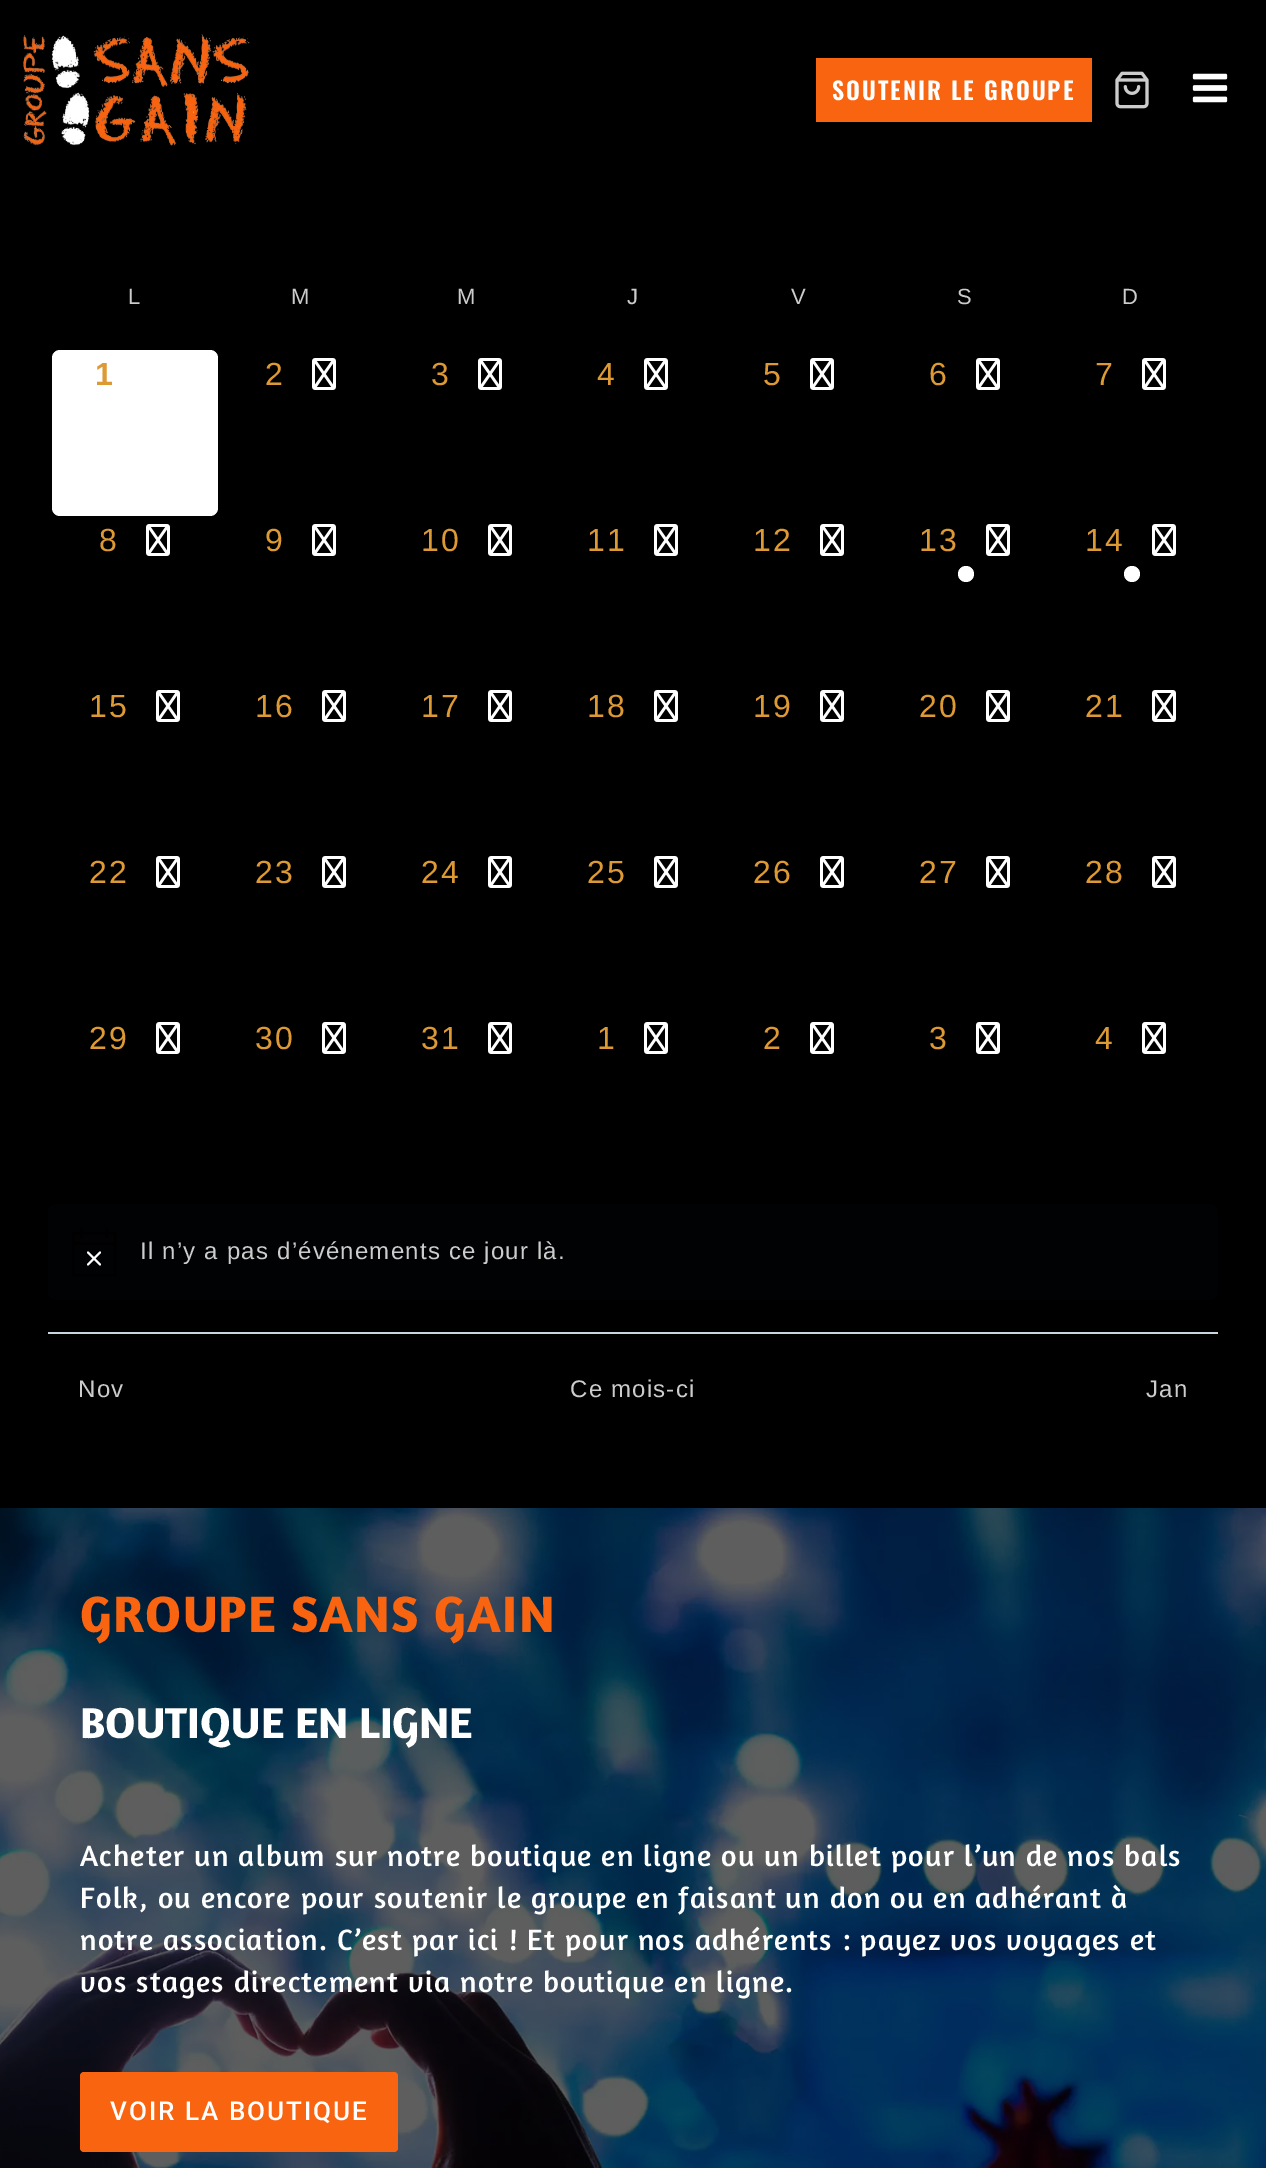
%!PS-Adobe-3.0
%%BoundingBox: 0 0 1266 2168
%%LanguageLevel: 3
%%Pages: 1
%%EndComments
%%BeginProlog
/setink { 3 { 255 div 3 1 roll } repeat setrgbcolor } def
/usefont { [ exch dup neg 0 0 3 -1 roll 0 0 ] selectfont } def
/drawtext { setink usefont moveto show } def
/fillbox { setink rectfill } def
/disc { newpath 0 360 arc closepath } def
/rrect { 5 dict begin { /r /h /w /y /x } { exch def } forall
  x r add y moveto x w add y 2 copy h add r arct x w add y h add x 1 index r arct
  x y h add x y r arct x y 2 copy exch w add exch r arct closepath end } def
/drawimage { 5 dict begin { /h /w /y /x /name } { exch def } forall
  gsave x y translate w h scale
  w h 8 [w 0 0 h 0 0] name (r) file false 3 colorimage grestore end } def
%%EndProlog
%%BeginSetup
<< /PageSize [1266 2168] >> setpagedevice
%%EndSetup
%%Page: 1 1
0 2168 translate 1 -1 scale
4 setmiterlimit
0 0 1266 2168 0 0 0 fillbox
(assets/img1.rgb) 23 34 227 112 drawimage
816 58 276 64 249 100 17 fillbox
/Oswald-SemiBold 24 usefont
255 255 255 setink
832 100 moveto 2 0 (SOUTENIR LE GROUPE) ashow
(assets/img2.rgb) 1115 71 34 38 drawimage
(assets/img3.rgb) 1192 73 36 30 drawimage
/LiberationSans-Regular 22 usefont
204 204 204 setink
128 304 moveto 1.2 0 (L) ashow
291 304 moveto 1.2 0 (M) ashow
457 304 moveto 1.2 0 (M) ashow
627 304 moveto 1.2 0 (J) ashow
791 304 moveto 1.2 0 (V) ashow
957 304 moveto 1.2 0 (S) ashow
1122 304 moveto 1.2 0 (D) ashow
255 255 255 setink
52 350 166 166 8 rrect fill
/LiberationSans-Bold 32 usefont
221 153 51 setink
95 385 moveto 2 0 (1) ashow
/LiberationSans-Regular 32 usefont
265 385 moveto 2 0 (2) ashow
(assets/img4.rgb) 312 358 24 32 drawimage
431 385 moveto 2 0 (3) ashow
(assets/img4.rgb) 478 358 24 32 drawimage
597 385 moveto 2 0 (4) ashow
(assets/img4.rgb) 644 358 24 32 drawimage
763 385 moveto 2 0 (5) ashow
(assets/img4.rgb) 810 358 24 32 drawimage
929 385 moveto 2 0 (6) ashow
(assets/img4.rgb) 976 358 24 32 drawimage
1095 385 moveto 2 0 (7) ashow
(assets/img4.rgb) 1142 358 24 32 drawimage
99 551 moveto 2 0 (8) ashow
(assets/img4.rgb) 146 524 24 32 drawimage
265 551 moveto 2 0 (9) ashow
(assets/img4.rgb) 312 524 24 32 drawimage
421 551 moveto 2 0 (10) ashow
(assets/img4.rgb) 488 524 24 32 drawimage
587 551 moveto 2 0 (11) ashow
(assets/img4.rgb) 654 524 24 32 drawimage
753 551 moveto 2 0 (12) ashow
(assets/img4.rgb) 820 524 24 32 drawimage
919 551 moveto 2 0 (13) ashow
(assets/img4.rgb) 986 524 24 32 drawimage
255 255 255 setink
966 574 8 disc fill
221 153 51 setink
1085 551 moveto 2 0 (14) ashow
(assets/img4.rgb) 1152 524 24 32 drawimage
255 255 255 setink
1132 574 8 disc fill
221 153 51 setink
89 717 moveto 2 0 (15) ashow
(assets/img4.rgb) 156 690 24 32 drawimage
255 717 moveto 2 0 (16) ashow
(assets/img4.rgb) 322 690 24 32 drawimage
421 717 moveto 2 0 (17) ashow
(assets/img4.rgb) 488 690 24 32 drawimage
587 717 moveto 2 0 (18) ashow
(assets/img4.rgb) 654 690 24 32 drawimage
753 717 moveto 2 0 (19) ashow
(assets/img4.rgb) 820 690 24 32 drawimage
919 717 moveto 2 0 (20) ashow
(assets/img4.rgb) 986 690 24 32 drawimage
1085 717 moveto 2 0 (21) ashow
(assets/img4.rgb) 1152 690 24 32 drawimage
89 883 moveto 2 0 (22) ashow
(assets/img4.rgb) 156 856 24 32 drawimage
255 883 moveto 2 0 (23) ashow
(assets/img4.rgb) 322 856 24 32 drawimage
421 883 moveto 2 0 (24) ashow
(assets/img4.rgb) 488 856 24 32 drawimage
587 883 moveto 2 0 (25) ashow
(assets/img4.rgb) 654 856 24 32 drawimage
753 883 moveto 2 0 (26) ashow
(assets/img4.rgb) 820 856 24 32 drawimage
919 883 moveto 2 0 (27) ashow
(assets/img4.rgb) 986 856 24 32 drawimage
1085 883 moveto 2 0 (28) ashow
(assets/img4.rgb) 1152 856 24 32 drawimage
89 1049 moveto 2 0 (29) ashow
(assets/img4.rgb) 156 1022 24 32 drawimage
255 1049 moveto 2 0 (30) ashow
(assets/img4.rgb) 322 1022 24 32 drawimage
421 1049 moveto 2 0 (31) ashow
(assets/img4.rgb) 488 1022 24 32 drawimage
597 1049 moveto 2 0 (1) ashow
(assets/img4.rgb) 644 1022 24 32 drawimage
763 1049 moveto 2 0 (2) ashow
(assets/img4.rgb) 810 1022 24 32 drawimage
929 1049 moveto 2 0 (3) ashow
(assets/img4.rgb) 976 1022 24 32 drawimage
1095 1049 moveto 2 0 (4) ashow
(assets/img4.rgb) 1142 1022 24 32 drawimage
1 2 3 setink
48 1204 1170 96 8 rrect fill
0 0 0 setink
2.1 setlinewidth
73 1233 moveto 115 1233 lineto 115 1275 lineto 73 1275 lineto closepath stroke
255 255 255 setink
1 setlinecap
88 1252.5 moveto 100 1264.5 lineto 100 1252.5 moveto 88 1264.5 lineto stroke
0 0 0 setink
81.5 1229 moveto 81.5 1237.5 lineto 106.5 1229 moveto 106.5 1237.5 lineto stroke
2 setlinecap
73 1243.5 moveto 115 1243.5 lineto stroke
/LiberationSans-Regular 24 usefont
204 204 204 setink
140 1259 moveto 1.2 0 (Il n’y a pas d’événements ce jour là.) ashow
48 1332 1170 2 203 213 224 fillbox
204 204 204 setink
78 1397 moveto 1.2 0 (Nov) ashow
570 1397 moveto 1.2 0 (Ce mois-ci) ashow
1146 1397 moveto 1.2 0 (Jan) ashow
(assets/img5.rgb) 0 1508 1266 660 drawimage
/Amaranth-Bold 52 usefont
249 100 17 setink
80 1632 moveto 1.2 0 (GROUPE SANS GAIN) ashow
(BOUTIQUE EN LIGNE) 80 1738 /Amaranth-Bold 44 255 255 255 drawtext
/Amaranth-Regular 30 usefont
80 1866 moveto 1.2 0 (Acheter un album sur notre boutique en ligne ou un billet pour l’un de nos bals) ashow
80 1908 moveto 1.2 0 (Folk, ou encore pour soutenir le groupe en faisant un don ou en adhérant à) ashow
80 1950 moveto 1.2 0 (notre association. C’est par ici ! Et pour nos adhérents : payez vos voyages et) ashow
80 1992 moveto 1.2 0 (vos stages directement via notre boutique en ligne.) ashow
249 100 17 setink
80 2072 318 80 4 rrect fill
/Roboto-Medium 26 usefont
255 255 255 setink
110 2120 moveto 2 0 (VOIR LA BOUTIQUE) ashow
showpage
%%EOF
